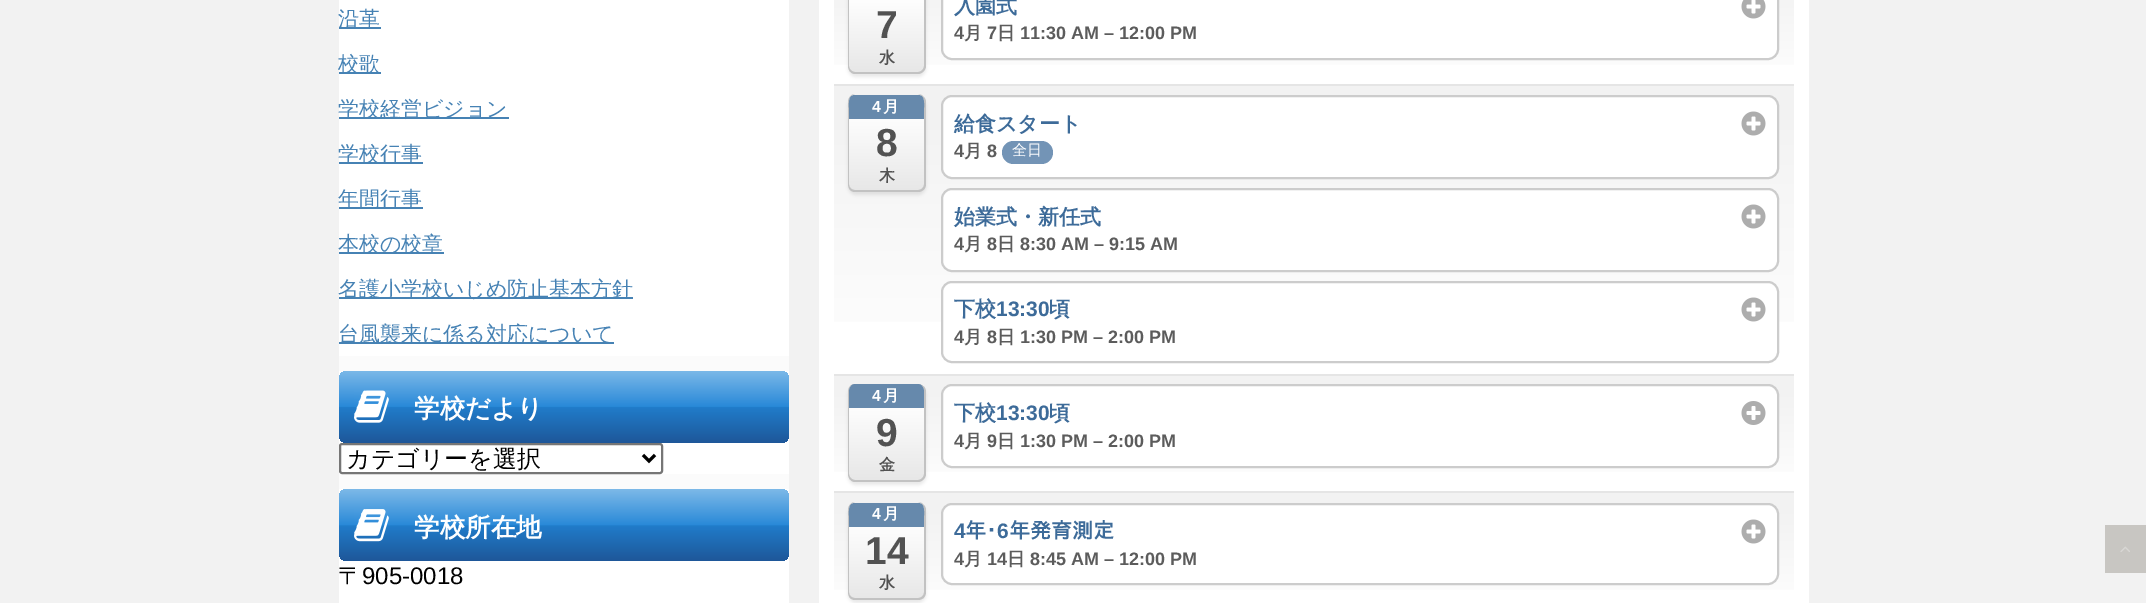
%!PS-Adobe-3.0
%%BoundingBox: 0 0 2146 603
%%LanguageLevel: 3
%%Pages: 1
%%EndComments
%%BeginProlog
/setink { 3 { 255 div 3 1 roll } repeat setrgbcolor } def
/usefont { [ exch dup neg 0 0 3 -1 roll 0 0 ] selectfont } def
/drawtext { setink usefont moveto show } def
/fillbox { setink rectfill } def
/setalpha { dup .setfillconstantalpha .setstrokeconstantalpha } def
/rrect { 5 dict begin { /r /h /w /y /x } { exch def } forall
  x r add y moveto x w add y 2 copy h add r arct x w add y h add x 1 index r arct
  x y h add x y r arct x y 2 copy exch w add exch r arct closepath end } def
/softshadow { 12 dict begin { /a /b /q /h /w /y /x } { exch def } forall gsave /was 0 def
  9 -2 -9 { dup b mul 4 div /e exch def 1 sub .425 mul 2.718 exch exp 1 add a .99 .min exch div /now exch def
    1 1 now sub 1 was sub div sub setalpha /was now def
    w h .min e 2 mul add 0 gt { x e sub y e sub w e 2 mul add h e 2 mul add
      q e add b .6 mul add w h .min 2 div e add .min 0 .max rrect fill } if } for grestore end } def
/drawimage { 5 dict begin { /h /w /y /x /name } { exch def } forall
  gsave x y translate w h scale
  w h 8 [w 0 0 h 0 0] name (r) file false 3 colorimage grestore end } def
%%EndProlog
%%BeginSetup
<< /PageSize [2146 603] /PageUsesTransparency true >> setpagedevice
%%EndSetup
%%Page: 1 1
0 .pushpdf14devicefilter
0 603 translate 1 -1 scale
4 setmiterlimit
0 0 2146 603 242 242 242 fillbox
339 356 450 133 251 251 251 fillbox
339 0 450 356 255 255 255 fillbox
339 27 42 2 70 130 180 fillbox
(沿革) 338 26 /WenQuanYiZenHei-Medium 21 70 130 180 drawtext
339 72 42 2 70 130 180 fillbox
(校歌) 338 71 /WenQuanYiZenHei-Medium 21 70 130 180 drawtext
339 117 170 2 70 130 180 fillbox
(学校経営ビジョン) 338 116 /WenQuanYiZenHei-Medium 21 70 130 180 drawtext
339 162 84 2 70 130 180 fillbox
(学校行事) 338 161 /WenQuanYiZenHei-Medium 21 70 130 180 drawtext
339 207 84 2 70 130 180 fillbox
(年間行事) 338 206 /WenQuanYiZenHei-Medium 21 70 130 180 drawtext
339 252 105 2 70 130 180 fillbox
(本校の校章) 338 251 /WenQuanYiZenHei-Medium 21 70 130 180 drawtext
339 297 294 2 70 130 180 fillbox
(名護小学校いじめ防止基本方針) 338 296 /WenQuanYiZenHei-Medium 21 70 130 180 drawtext
339 342 275 2 70 130 180 fillbox
(台風襲来に係る対応について) 338 341 /WenQuanYiZenHei-Medium 21 70 130 180 drawtext
339 371 450 103 255 255 255 fillbox
gsave 339 371 450 72 8 rrect clip newpath
<< /ShadingType 2 /ColorSpace /DeviceRGB /Coords [564 370 564 443] /Extend [true true] /Function << /FunctionType 3 /Domain [0 1] /Functions [<< /FunctionType 2 /Domain [0 1] /C0 [0.49 0.725 0.91] /C1 [0.161 0.537 0.847] /N 1 >> << /FunctionType 2 /Domain [0 1] /C0 [0.161 0.537 0.847] /C1 [0.125 0.486 0.792] /N 1 >> << /FunctionType 2 /Domain [0 1] /C0 [0.125 0.486 0.792] /C1 [0.118 0.341 0.6] /N 1 >>] /Bounds [0.5 0.51] /Encode [0 1 0 1 0 1] >> >> shfill grestore
(assets/img1.rgb) 354 390 35 33 drawimage
(学校だより) 414 417 /WenQuanYiZenHei-Bold 25.5 255 255 255 drawtext
118 118 118 setink
2 setlinewidth
340 444 322 29 2 rrect stroke
0 0 0 setink
3 setlinewidth
643 455 moveto 649 461 lineto 655 455 lineto stroke
(カテゴリーを選択) 346 467 /WenQuanYiZenHei-Medium 24 0 0 0 drawtext
339 489 450 114 255 255 255 fillbox
gsave 339 489 450 72 8 rrect clip newpath
<< /ShadingType 2 /ColorSpace /DeviceRGB /Coords [564 489 564 561] /Extend [true true] /Function << /FunctionType 3 /Domain [0 1] /Functions [<< /FunctionType 2 /Domain [0 1] /C0 [0.49 0.725 0.91] /C1 [0.161 0.537 0.847] /N 1 >> << /FunctionType 2 /Domain [0 1] /C0 [0.161 0.537 0.847] /C1 [0.125 0.486 0.792] /N 1 >> << /FunctionType 2 /Domain [0 1] /C0 [0.125 0.486 0.792] /C1 [0.118 0.341 0.6] /N 1 >>] /Bounds [0.5 0.51] /Encode [0 1 0 1 0 1] >> >> shfill grestore
(assets/img2.rgb) 354 509 35 33 drawimage
(学校所在地) 414 536 /WenQuanYiZenHei-Bold 25.5 255 255 255 drawtext
(〒) 338 584 /WenQuanYiZenHei-Medium 24 0 0 0 drawtext
(905-0018) 362 584 /LiberationSans-Regular 24 0 0 0 drawtext
819 0 990 603 255 255 255 fillbox
gsave 834 0 moveto 1794 0 lineto 1794 65 lineto 834 65 lineto closepath clip newpath
<< /ShadingType 2 /ColorSpace /DeviceRGB /Coords [1314 -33 1314 84] /Extend [true true] /Function << /FunctionType 3 /Domain [0 1] /Functions [<< /FunctionType 2 /Domain [0 1] /C0 [0.949 0.949 0.949] /C1 [0.949 0.949 0.949] /N 1 >> << /FunctionType 2 /Domain [0 1] /C0 [0.949 0.949 0.949] /C1 [1 1 1] /N 1 >>] /Bounds [0.17] /Encode [0 1 0 1] >> >> shfill grestore
0 0 0 setink
848 -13 78 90 8 1.5 0.08 softshadow
gsave
848 -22 78 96 8 rrect clip newpath
gsave 849 0 moveto 924 0 lineto 924 72 lineto 849 72 lineto closepath clip newpath
<< /ShadingType 2 /ColorSpace /DeviceRGB /Coords [887 -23 887 72] /Extend [true true] /Function << /FunctionType 3 /Domain [0 1] /Functions [<< /FunctionType 2 /Domain [0 1] /C0 [1 1 1] /C1 [1 1 1] /N 1 >> << /FunctionType 2 /Domain [0 1] /C0 [1 1 1] /C1 [0.906 0.906 0.906] /N 1 >>] /Bounds [0.21] /Encode [0 1 0 1] >> >> shfill grestore
grestore
194 194 194 setink
855 -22 moveto 918 -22 lineto 922 -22 926 -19 926 -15 curveto 926 66 lineto 926 70 922 74 918 74 curveto 855 74 lineto 851 74 848 70 848 66 curveto 848 -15 lineto 848 -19 851 -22 855 -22 curveto closepath 855 -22 moveto 918 -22 lineto 921 -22 924 -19 924 -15 curveto 924 66 lineto 924 69 921 72 918 72 curveto 855 72 lineto 852 72 849 69 849 66 curveto 849 -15 lineto 849 -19 852 -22 855 -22 curveto closepath eofill
(7) 876 38 /LiberationSans-Bold 39 82 82 82 drawtext
(水) 879 63 /WenQuanYiZenHei-Bold 16 82 82 82 drawtext
255 255 255 setink
942 -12 836 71 10 rrect gsave fill grestore
204 204 204 setink
2 setlinewidth
stroke
(入園式) 954 13 /WenQuanYiZenHei-Bold 21 61 107 153 drawtext
(assets/img3.rgb) 1741 0 25 19 drawimage
(4) 954 39 /LiberationSans-Bold 18 92 92 92 drawtext
(月) 964 39 /WenQuanYiZenHei-Bold 18 92 92 92 drawtext
(7) 987 39 /LiberationSans-Bold 18 92 92 92 drawtext
(日) 997 39 /WenQuanYiZenHei-Bold 18 92 92 92 drawtext
(11:30 AM – 12:00 PM) 1020 39 /LiberationSans-Bold 18 92 92 92 drawtext
gsave 834 86 moveto 1794 86 lineto 1794 322 lineto 834 322 lineto closepath clip newpath
<< /ShadingType 2 /ColorSpace /DeviceRGB /Coords [1314 85 1314 374] /Extend [true true] /Function << /FunctionType 3 /Domain [0 1] /Functions [<< /FunctionType 2 /Domain [0 1] /C0 [0.949 0.949 0.949] /C1 [0.949 0.949 0.949] /N 1 >> << /FunctionType 2 /Domain [0 1] /C0 [0.949 0.949 0.949] /C1 [1 1 1] /N 1 >>] /Bounds [0.07] /Encode [0 1 0 1] >> >> shfill grestore
834 84 960 2 229 229 229 fillbox
0 0 0 setink
848 98 78 97 8 1.5 0.08 softshadow
gsave
848 95 78 97 8 rrect clip newpath
gsave 849 95 moveto 924 95 lineto 924 191 lineto 849 191 lineto closepath clip newpath
<< /ShadingType 2 /ColorSpace /DeviceRGB /Coords [887 95 887 191] /Extend [true true] /Function << /FunctionType 3 /Domain [0 1] /Functions [<< /FunctionType 2 /Domain [0 1] /C0 [1 1 1] /C1 [1 1 1] /N 1 >> << /FunctionType 2 /Domain [0 1] /C0 [1 1 1] /C1 [0.906 0.906 0.906] /N 1 >>] /Bounds [0.2] /Encode [0 1 0 1] >> >> shfill grestore
grestore
194 194 194 setink
855 94 moveto 918 94 lineto 922 94 926 98 926 102 curveto 926 184 lineto 926 189 922 192 918 192 curveto 855 192 lineto 851 192 848 189 848 184 curveto 848 102 lineto 848 98 851 94 855 94 curveto closepath 855 94 moveto 918 94 lineto 921 94 924 98 924 102 curveto 924 184 lineto 924 188 921 190 918 190 curveto 855 190 lineto 852 190 849 188 849 184 curveto 849 102 lineto 849 98 852 94 855 94 curveto closepath eofill
102 137 172 setink
855 95 moveto 848 95 849 103 849 108 curveto 849 119 lineto 924 119 lineto 924 108 lineto 924 103 925 95 918 95 curveto closepath fill
/LiberationSans-Bold 16 usefont
255 255 255 setink
872 112 moveto 3 0 (4) ashow
/WenQuanYiZenHei-Bold 16 usefont
883 112 moveto 3 0 (月) ashow
(8) 876 156 /LiberationSans-Bold 39 82 82 82 drawtext
(木) 879 181 /WenQuanYiZenHei-Bold 16 82 82 82 drawtext
255 255 255 setink
942 96 836 82 10 rrect gsave fill grestore
204 204 204 setink
stroke
(給食スタート) 954 131 /WenQuanYiZenHei-Bold 21 61 107 153 drawtext
(assets/img4.rgb) 1741 111 25 25 drawimage
(4) 954 157 /LiberationSans-Bold 18 92 92 92 drawtext
(月) 964 157 /WenQuanYiZenHei-Bold 18 92 92 92 drawtext
(8) 987 157 /LiberationSans-Bold 18 92 92 92 drawtext
115 148 182 setink
1002 141 51 23 11.5 rrect fill
(全日) 1012 155 /WenQuanYiZenHei-Medium 15 255 255 255 drawtext
942 189 836 82 10 rrect gsave fill grestore
204 204 204 setink
stroke
(始業式・新任式) 954 224 /WenQuanYiZenHei-Bold 21 61 107 153 drawtext
(assets/img4.rgb) 1741 204 25 25 drawimage
(4) 954 250 /LiberationSans-Bold 18 92 92 92 drawtext
(月) 964 250 /WenQuanYiZenHei-Bold 18 92 92 92 drawtext
(8) 987 250 /LiberationSans-Bold 18 92 92 92 drawtext
(日) 997 250 /WenQuanYiZenHei-Bold 18 92 92 92 drawtext
(8:30 AM – 9:15 AM) 1020 250 /LiberationSans-Bold 18 92 92 92 drawtext
255 255 255 setink
942 282 836 80 10 rrect gsave fill grestore
204 204 204 setink
stroke
(下校) 954 316 /WenQuanYiZenHei-Bold 21 61 107 153 drawtext
(13:30) 996 316 /LiberationSans-Bold 21 61 107 153 drawtext
(頃) 1049 316 /WenQuanYiZenHei-Bold 21 61 107 153 drawtext
(assets/img4.rgb) 1741 297 25 25 drawimage
(4) 954 343 /LiberationSans-Bold 18 92 92 92 drawtext
(月) 964 343 /WenQuanYiZenHei-Bold 18 92 92 92 drawtext
(8) 987 343 /LiberationSans-Bold 18 92 92 92 drawtext
(日) 997 343 /WenQuanYiZenHei-Bold 18 92 92 92 drawtext
(1:30 PM – 2:00 PM) 1020 343 /LiberationSans-Bold 18 92 92 92 drawtext
gsave 834 376 moveto 1794 376 lineto 1794 472 lineto 834 472 lineto closepath clip newpath
<< /ShadingType 2 /ColorSpace /DeviceRGB /Coords [1314 375 1314 491] /Extend [true true] /Function << /FunctionType 3 /Domain [0 1] /Functions [<< /FunctionType 2 /Domain [0 1] /C0 [0.949 0.949 0.949] /C1 [0.949 0.949 0.949] /N 1 >> << /FunctionType 2 /Domain [0 1] /C0 [0.949 0.949 0.949] /C1 [1 1 1] /N 1 >>] /Bounds [0.17] /Encode [0 1 0 1] >> >> shfill grestore
834 374 960 2 229 229 229 fillbox
0 0 0 setink
848 387 78 98 8 1.5 0.08 softshadow
gsave
848 384 78 98 8 rrect clip newpath
gsave 849 384 moveto 924 384 lineto 924 480 lineto 849 480 lineto closepath clip newpath
<< /ShadingType 2 /ColorSpace /DeviceRGB /Coords [887 384 887 480] /Extend [true true] /Function << /FunctionType 3 /Domain [0 1] /Functions [<< /FunctionType 2 /Domain [0 1] /C0 [1 1 1] /C1 [1 1 1] /N 1 >> << /FunctionType 2 /Domain [0 1] /C0 [1 1 1] /C1 [0.906 0.906 0.906] /N 1 >>] /Bounds [0.2] /Encode [0 1 0 1] >> >> shfill grestore
grestore
194 194 194 setink
855 384 moveto 918 384 lineto 922 384 926 387 926 392 curveto 926 474 lineto 926 478 922 482 918 482 curveto 855 482 lineto 851 482 848 478 848 474 curveto 848 392 lineto 848 387 851 384 855 384 curveto closepath 855 384 moveto 918 384 lineto 921 384 924 387 924 392 curveto 924 474 lineto 924 477 921 480 918 480 curveto 855 480 lineto 852 480 849 477 849 474 curveto 849 392 lineto 849 387 852 384 855 384 curveto closepath eofill
102 137 172 setink
855 384 moveto 852 384 849 387 849 392 curveto 849 408 lineto 924 408 lineto 924 392 lineto 924 387 921 384 918 384 curveto closepath fill
/LiberationSans-Bold 16 usefont
255 255 255 setink
872 401 moveto 3 0 (4) ashow
/WenQuanYiZenHei-Bold 16 usefont
883 401 moveto 3 0 (月) ashow
(9) 876 446 /LiberationSans-Bold 39 82 82 82 drawtext
(金) 879 470 /WenQuanYiZenHei-Bold 16 82 82 82 drawtext
255 255 255 setink
942 385 836 82 10 rrect gsave fill grestore
204 204 204 setink
stroke
(下校) 954 420 /WenQuanYiZenHei-Bold 21 61 107 153 drawtext
(13:30) 996 420 /LiberationSans-Bold 21 61 107 153 drawtext
(頃) 1049 420 /WenQuanYiZenHei-Bold 21 61 107 153 drawtext
(assets/img5.rgb) 1741 401 25 24 drawimage
(4) 954 447 /LiberationSans-Bold 18 92 92 92 drawtext
(月) 964 447 /WenQuanYiZenHei-Bold 18 92 92 92 drawtext
(9) 987 447 /LiberationSans-Bold 18 92 92 92 drawtext
(日) 997 447 /WenQuanYiZenHei-Bold 18 92 92 92 drawtext
(1:30 PM – 2:00 PM) 1020 447 /LiberationSans-Bold 18 92 92 92 drawtext
gsave 834 493 moveto 1794 493 lineto 1794 590 lineto 834 590 lineto closepath clip newpath
<< /ShadingType 2 /ColorSpace /DeviceRGB /Coords [1314 492 1314 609] /Extend [true true] /Function << /FunctionType 3 /Domain [0 1] /Functions [<< /FunctionType 2 /Domain [0 1] /C0 [0.949 0.949 0.949] /C1 [0.949 0.949 0.949] /N 1 >> << /FunctionType 2 /Domain [0 1] /C0 [0.949 0.949 0.949] /C1 [1 1 1] /N 1 >>] /Bounds [0.17] /Encode [0 1 0 1] >> >> shfill grestore
834 491 960 2 229 229 229 fillbox
0 0 0 setink
848 506 78 97 8 1.5 0.08 softshadow
gsave
848 503 78 97 8 rrect clip newpath
gsave 849 503 moveto 924 503 lineto 924 599 lineto 849 599 lineto closepath clip newpath
<< /ShadingType 2 /ColorSpace /DeviceRGB /Coords [887 503 887 599] /Extend [true true] /Function << /FunctionType 3 /Domain [0 1] /Functions [<< /FunctionType 2 /Domain [0 1] /C0 [1 1 1] /C1 [1 1 1] /N 1 >> << /FunctionType 2 /Domain [0 1] /C0 [1 1 1] /C1 [0.906 0.906 0.906] /N 1 >>] /Bounds [0.2] /Encode [0 1 0 1] >> >> shfill grestore
grestore
194 194 194 setink
855 502 moveto 918 502 lineto 922 502 926 506 926 510 curveto 926 592 lineto 926 597 922 600 918 600 curveto 855 600 lineto 851 600 848 597 848 592 curveto 848 510 lineto 848 506 851 502 855 502 curveto closepath 855 502 moveto 918 502 lineto 921 502 924 506 924 510 curveto 924 592 lineto 924 596 921 598 918 598 curveto 855 598 lineto 852 598 849 596 849 592 curveto 849 510 lineto 849 506 852 502 855 502 curveto closepath eofill
102 137 172 setink
855 503 moveto 848 503 849 511 849 516 curveto 849 527 lineto 924 527 lineto 924 516 lineto 924 511 925 503 918 503 curveto closepath fill
/LiberationSans-Bold 16 usefont
255 255 255 setink
872 519 moveto 3 0 (4) ashow
/WenQuanYiZenHei-Bold 16 usefont
883 519 moveto 3 0 (月) ashow
(14) 865 564 /LiberationSans-Bold 39 82 82 82 drawtext
(水) 879 588 /WenQuanYiZenHei-Bold 16 82 82 82 drawtext
255 255 255 setink
942 504 836 80 10 rrect gsave fill grestore
204 204 204 setink
stroke
(4) 954 538 /LiberationSans-Bold 21 61 107 153 drawtext
(年･) 965 538 /IPAPGothic-Bold 21 61 107 153 drawtext
(6) 997 538 /LiberationSans-Bold 21 61 107 153 drawtext
(年発育測定) 1009 538 /IPAPGothic-Bold 21 61 107 153 drawtext
(assets/img4.rgb) 1741 519 25 25 drawimage
(4) 954 565 /LiberationSans-Bold 18 92 92 92 drawtext
(月) 964 565 /WenQuanYiZenHei-Bold 18 92 92 92 drawtext
(14) 987 565 /LiberationSans-Bold 18 92 92 92 drawtext
(日) 1007 565 /WenQuanYiZenHei-Bold 18 92 92 92 drawtext
(8:45 AM – 12:00 PM) 1030 565 /LiberationSans-Bold 18 92 92 92 drawtext
2105 525 41 48 200 198 194 fillbox
(assets/img6.rgb) 2120 546 10 6 drawimage
.poppdf14devicefilter showpage
%%EOF
